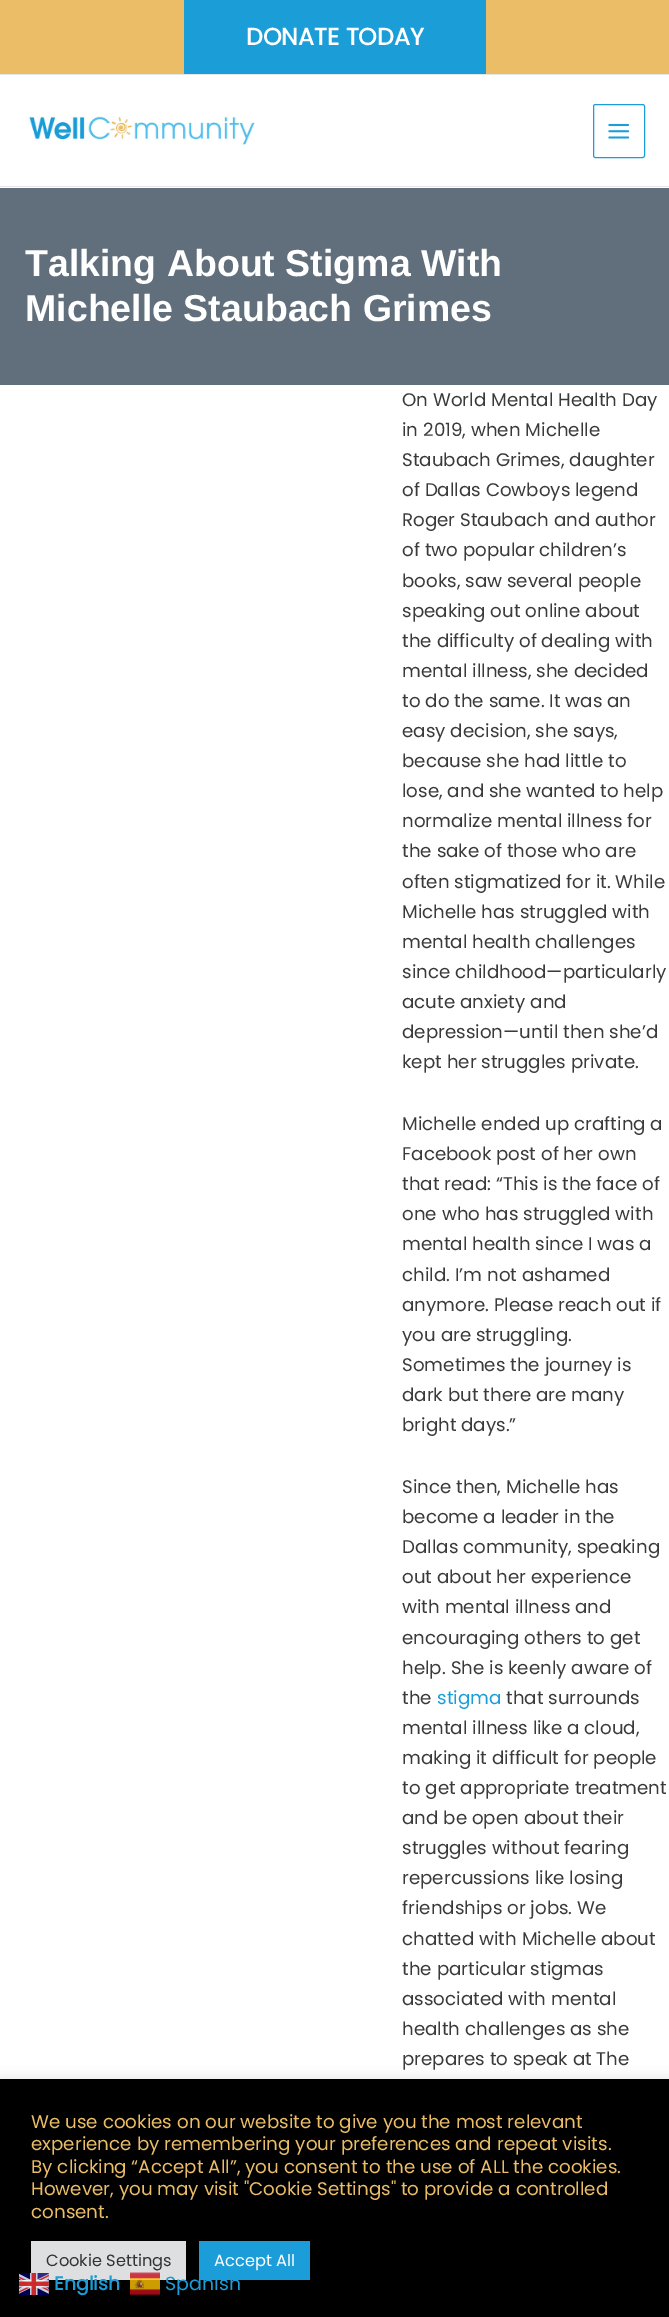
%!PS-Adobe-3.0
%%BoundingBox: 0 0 669 2317
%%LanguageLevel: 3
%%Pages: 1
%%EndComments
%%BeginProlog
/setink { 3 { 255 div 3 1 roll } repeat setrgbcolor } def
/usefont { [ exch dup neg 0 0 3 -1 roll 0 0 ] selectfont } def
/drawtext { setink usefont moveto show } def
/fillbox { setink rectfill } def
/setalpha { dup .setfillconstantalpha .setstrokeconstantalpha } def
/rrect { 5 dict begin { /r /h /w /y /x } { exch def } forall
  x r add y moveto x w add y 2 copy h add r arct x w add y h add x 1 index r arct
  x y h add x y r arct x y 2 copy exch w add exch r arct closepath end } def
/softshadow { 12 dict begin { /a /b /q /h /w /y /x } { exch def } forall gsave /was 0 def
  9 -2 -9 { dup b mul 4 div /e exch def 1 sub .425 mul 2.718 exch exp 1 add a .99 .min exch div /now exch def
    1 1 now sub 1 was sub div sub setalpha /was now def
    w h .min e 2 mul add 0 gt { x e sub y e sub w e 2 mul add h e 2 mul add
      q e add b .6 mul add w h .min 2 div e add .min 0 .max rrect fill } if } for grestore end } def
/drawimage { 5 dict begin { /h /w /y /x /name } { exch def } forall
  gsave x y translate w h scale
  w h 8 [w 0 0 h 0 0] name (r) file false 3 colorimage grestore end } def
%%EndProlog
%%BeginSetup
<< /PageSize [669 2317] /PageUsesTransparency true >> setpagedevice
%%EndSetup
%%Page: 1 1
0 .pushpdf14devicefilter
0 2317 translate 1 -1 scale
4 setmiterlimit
0 0 669 2317 255 255 255 fillbox
0 0 669 74 235 189 102 fillbox
0 74 669 1 229 229 229 fillbox
184 0 302 74 27 157 216 fillbox
(DONATE TODAY) 246 45 /Poppins-Bold 23.75 255 255 255 drawtext
0 186 669 1 229 229 229 fillbox
(assets/img1.rgb) 28 116 227 29 drawimage
27 157 216 setink
593.5 104.5 51 53 2 rrect stroke
(assets/img2.rgb) 608 123 22 16 drawimage
0 188 669 197 97 111 124 fillbox
(Talking About Stigma With) 25 276 /LiberationSans-Bold 37.5 255 255 255 drawtext
(Michelle Staubach Grimes) 25 321 /LiberationSans-Bold 37.5 255 255 255 drawtext
(On World Mental Health Day) 402 406 /Poppins-Regular 18.25 58 58 58 drawtext
(in 2019, when Michelle) 402 436 /Poppins-Regular 18.25 58 58 58 drawtext
(Staubach Grimes, daughter) 402 466 /Poppins-Regular 18.25 58 58 58 drawtext
(of Dallas Cowboys legend) 402 496 /Poppins-Regular 18.25 58 58 58 drawtext
(Roger Staubach and author) 402 526 /Poppins-Regular 18.25 58 58 58 drawtext
(of two popular children’s) 402 556 /Poppins-Regular 18.25 58 58 58 drawtext
(books, saw several people) 402 587 /Poppins-Regular 18.25 58 58 58 drawtext
(speaking out online about) 402 617 /Poppins-Regular 18.25 58 58 58 drawtext
(the difficulty of dealing with) 402 647 /Poppins-Regular 18.25 58 58 58 drawtext
(mental illness, she decided) 402 677 /Poppins-Regular 18.25 58 58 58 drawtext
(to do the same. It was an) 402 707 /Poppins-Regular 18.25 58 58 58 drawtext
(easy decision, she says,) 402 737 /Poppins-Regular 18.25 58 58 58 drawtext
(because she had little to) 402 767 /Poppins-Regular 18.25 58 58 58 drawtext
(lose, and she wanted to help) 402 797 /Poppins-Regular 18.25 58 58 58 drawtext
(normalize mental illness for) 402 827 /Poppins-Regular 18.25 58 58 58 drawtext
(the sake of those who are) 402 857 /Poppins-Regular 18.25 58 58 58 drawtext
(often stigmatized for it. While) 402 888 /Poppins-Regular 18.25 58 58 58 drawtext
(Michelle has struggled with) 402 918 /Poppins-Regular 18.25 58 58 58 drawtext
(mental health challenges) 402 948 /Poppins-Regular 18.25 58 58 58 drawtext
(since childhood—particularly) 402 978 /Poppins-Regular 18.25 58 58 58 drawtext
(acute anxiety and) 402 1008 /Poppins-Regular 18.25 58 58 58 drawtext
(depression—until then she’d) 402 1038 /Poppins-Regular 18.25 58 58 58 drawtext
(kept her struggles private.) 402 1068 /Poppins-Regular 18.25 58 58 58 drawtext
(Michelle ended up crafting a) 402 1130 /Poppins-Regular 18.25 58 58 58 drawtext
(Facebook post of her own) 402 1160 /Poppins-Regular 18.25 58 58 58 drawtext
(that read: “This is the face of) 402 1190 /Poppins-Regular 18.25 58 58 58 drawtext
(one who has struggled with) 402 1220 /Poppins-Regular 18.25 58 58 58 drawtext
(mental health since I was a) 402 1250 /Poppins-Regular 18.25 58 58 58 drawtext
(child. I’m not ashamed) 402 1281 /Poppins-Regular 18.25 58 58 58 drawtext
(anymore. Please reach out if) 402 1311 /Poppins-Regular 18.25 58 58 58 drawtext
(you are struggling.) 402 1341 /Poppins-Regular 18.25 58 58 58 drawtext
(Sometimes the journey is) 402 1371 /Poppins-Regular 18.25 58 58 58 drawtext
(dark but there are many) 402 1401 /Poppins-Regular 18.25 58 58 58 drawtext
(bright days.”) 402 1431 /Poppins-Regular 18.25 58 58 58 drawtext
(Since then, Michelle has) 402 1493 /Poppins-Regular 18.25 58 58 58 drawtext
(become a leader in the) 402 1523 /Poppins-Regular 18.25 58 58 58 drawtext
(Dallas community, speaking) 402 1553 /Poppins-Regular 18.25 58 58 58 drawtext
(out about her experience) 402 1583 /Poppins-Regular 18.25 58 58 58 drawtext
(with mental illness and) 402 1613 /Poppins-Regular 18.25 58 58 58 drawtext
(encouraging others to get) 402 1644 /Poppins-Regular 18.25 58 58 58 drawtext
(help. She is keenly aware of) 402 1674 /Poppins-Regular 18.25 58 58 58 drawtext
(the) 402 1704 /Poppins-Regular 18.25 58 58 58 drawtext
(stigma) 437 1704 /Poppins-Regular 18.25 27 157 216 drawtext
(that surrounds) 506 1704 /Poppins-Regular 18.25 58 58 58 drawtext
(mental illness like a cloud,) 402 1734 /Poppins-Regular 18.25 58 58 58 drawtext
(making it difficult for people) 402 1764 /Poppins-Regular 18.25 58 58 58 drawtext
(to get appropriate treatment) 402 1794 /Poppins-Regular 18.25 58 58 58 drawtext
(and be open about their) 402 1824 /Poppins-Regular 18.25 58 58 58 drawtext
(struggles without fearing) 402 1854 /Poppins-Regular 18.25 58 58 58 drawtext
(repercussions like losing) 402 1884 /Poppins-Regular 18.25 58 58 58 drawtext
(friendships or jobs. We) 402 1914 /Poppins-Regular 18.25 58 58 58 drawtext
(chatted with Michelle about) 402 1945 /Poppins-Regular 18.25 58 58 58 drawtext
(the particular stigmas) 402 1975 /Poppins-Regular 18.25 58 58 58 drawtext
(associated with mental) 402 2005 /Poppins-Regular 18.25 58 58 58 drawtext
(health challenges as she) 402 2035 /Poppins-Regular 18.25 58 58 58 drawtext
(prepares to speak at The) 402 2065 /Poppins-Regular 18.25 58 58 58 drawtext
172 171 171 setink
0 2078 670 238 0 6 0.3 softshadow
0 2079 669 238 0 0 0 fillbox
(We use cookies on our website to give you the most relevant) 31 2128 /Poppins-Regular 18.3 235 189 103 drawtext
(experience by remembering your preferences and repeat visits.) 31 2150 /Poppins-Regular 18.3 235 189 103 drawtext
(By clicking “Accept All”, you consent to the use of ALL the cookies.) 31 2173 /Poppins-Regular 18.3 235 189 103 drawtext
(However, you may visit "Cookie Settings" to provide a controlled) 31 2195 /Poppins-Regular 18.3 235 189 103 drawtext
(consent.) 31 2218 /Poppins-Regular 18.3 235 189 103 drawtext
31 2241 155 39 222 223 224 fillbox
(Cookie Settings) 46 2266 /Poppins-Regular 16.25 51 51 51 drawtext
199 2241 111 39 27 157 217 fillbox
(Accept All) 214 2266 /Poppins-Regular 16.25 255 255 255 drawtext
(assets/img3.rgb) 19 2273 30 22 drawimage
(English) 54 2290 /Poppins-Bold 19 27 157 216 drawtext
(assets/img4.rgb) 130 2272 30 24 drawimage
(Spanish) 165 2290 /Poppins-Regular 19 27 157 216 drawtext
.poppdf14devicefilter showpage
%%EOF
